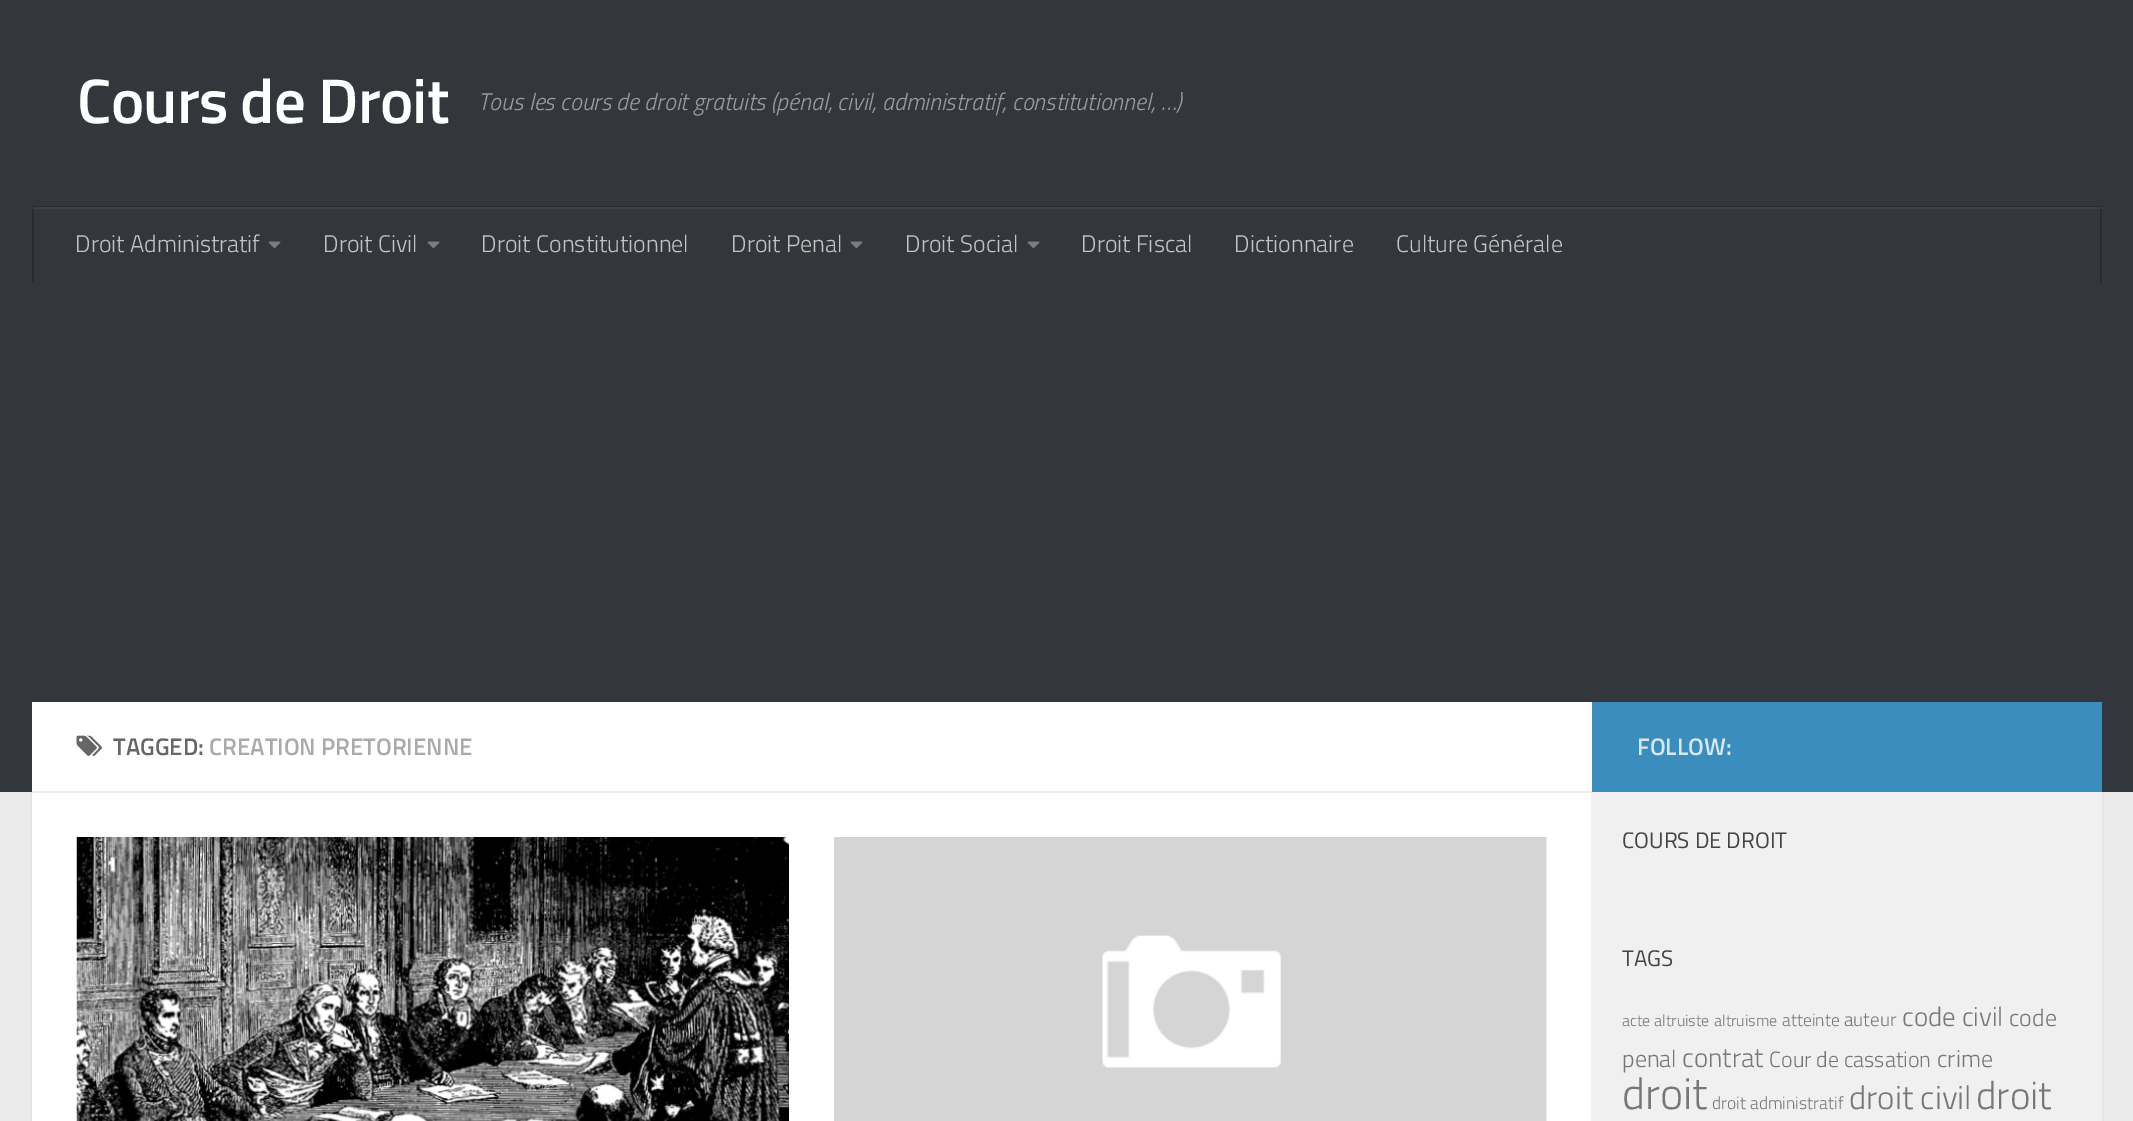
%!PS-Adobe-3.0
%%BoundingBox: 0 0 2133 1121
%%LanguageLevel: 3
%%Pages: 1
%%EndComments
%%BeginProlog
/setink { 3 { 255 div 3 1 roll } repeat setrgbcolor } def
/usefont { [ exch dup neg 0 0 3 -1 roll 0 0 ] selectfont } def
/drawtext { setink usefont moveto show } def
/fillbox { setink rectfill } def
/setalpha { dup .setfillconstantalpha .setstrokeconstantalpha } def
/rrect { 5 dict begin { /r /h /w /y /x } { exch def } forall
  x r add y moveto x w add y 2 copy h add r arct x w add y h add x 1 index r arct
  x y h add x y r arct x y 2 copy exch w add exch r arct closepath end } def
/softshadow { 12 dict begin { /a /b /q /h /w /y /x } { exch def } forall gsave /was 0 def
  9 -2 -9 { dup b mul 4 div /e exch def 1 sub .425 mul 2.718 exch exp 1 add a .99 .min exch div /now exch def
    1 1 now sub 1 was sub div sub setalpha /was now def
    w h .min e 2 mul add 0 gt { x e sub y e sub w e 2 mul add h e 2 mul add
      q e add b .6 mul add w h .min 2 div e add .min 0 .max rrect fill } if } for grestore end } def
/drawimage { 5 dict begin { /h /w /y /x /name } { exch def } forall
  gsave x y translate w h scale
  w h 8 [w 0 0 h 0 0] name (r) file false 3 colorimage grestore end } def
%%EndProlog
%%BeginSetup
<< /PageSize [2133 1121] /PageUsesTransparency true >> setpagedevice
%%EndSetup
%%Page: 1 1
0 .pushpdf14devicefilter
0 1121 translate 1 -1 scale
4 setmiterlimit
0 0 2133 1121 234 234 234 fillbox
0 0 0 setink
32 704 2070 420 0 1 0.1 softshadow
0 0 2133 792 51 54 59 fillbox
32 207 2070 2 61 64 69 fillbox
/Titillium-SemiBold 63 usefont
255 255 255 setink
77 123 moveto -0.75 0 (Cours de Droit) ashow
(Tous les cours de droit gratuits \(pénal, civil, administratif, constitutionnel, …\)) 478 110 /Titillium-LightItalic 24 153 155 157 drawtext
41 43 47 setink
32 206 moveto 32 207 lineto 2102 207 lineto 2102 281 lineto 2102 206 lineto closepath fill
2100 207 2 75 41 43 47 fillbox
2100 207 2 2 52 54 57 fillbox
32 207 2 75 41 43 47 fillbox
32 207 2 2 52 54 57 fillbox
(Droit Administratif) 75 252 /Titillium-Light 24 194 195 196 drawtext
(assets/img1.rgb) 268 241 13 8 drawimage
(Droit Civil) 323 252 /Titillium-Light 24 194 195 196 drawtext
(assets/img1.rgb) 427 241 13 8 drawimage
(Droit Constitutionnel) 481 252 /Titillium-Light 24 194 195 196 drawtext
(Droit Penal) 731 252 /Titillium-Light 24 194 195 196 drawtext
(assets/img1.rgb) 850 241 13 8 drawimage
(Droit Social) 905 252 /Titillium-Light 24 194 195 196 drawtext
(assets/img1.rgb) 1027 241 13 8 drawimage
(Droit Fiscal) 1081 252 /Titillium-Light 24 194 195 196 drawtext
(Dictionnaire) 1234 252 /Titillium-Light 24 194 195 196 drawtext
(Culture Générale) 1396 252 /Titillium-Light 24 194 195 196 drawtext
32 793 1559 328 255 255 255 fillbox
1591 792 511 329 240 240 240 fillbox
32 702 1560 89 255 255 255 fillbox
32 791 1560 2 238 238 238 fillbox
(assets/img2.rgb) 76 735 26 21 drawimage
(TAGGED:) 113 755 /Titillium-SemiBold 24 102 102 102 drawtext
(CREATION PRETORIENNE) 209 755 /Titillium-SemiBold 24 170 170 170 drawtext
(assets/img3.rgb) 76 837 713 284 drawimage
(assets/img4.rgb) 834 837 713 284 drawimage
1592 702 510 90 59 141 189 fillbox
(FOLLOW:) 1637 755 /Titillium-SemiBold 24 216 232 242 drawtext
(COURS DE DROIT) 1622 848 /Titillium-Regular 22.5 68 68 68 drawtext
(TAGS) 1622 966 /Titillium-Regular 22.5 68 68 68 drawtext
(acte altruiste) 1622 1026 /Titillium-Light 16 119 119 119 drawtext
(altruisme) 1714 1026 /Titillium-Light 16 119 119 119 drawtext
(atteinte) 1782 1026 /Titillium-Light 17.5 119 119 119 drawtext
(auteur) 1844 1026 /Titillium-Light 19 119 119 119 drawtext
(code civil) 1902 1026 /Titillium-Light 27 119 119 119 drawtext
(code) 2009 1026 /Titillium-Light 24 119 119 119 drawtext
(penal) 1622 1067 /Titillium-Light 24 119 119 119 drawtext
(contrat) 1682 1067 /Titillium-Light 27 119 119 119 drawtext
(Cour de cassation) 1769 1067 /Titillium-Light 22 119 119 119 drawtext
(crime) 1937 1067 /Titillium-Light 24 119 119 119 drawtext
(droit) 1622 1109 /Titillium-Light 44 119 119 119 drawtext
(droit administratif) 1712 1109 /Titillium-Light 17.5 119 119 119 drawtext
(droit civil) 1849 1109 /Titillium-Light 33 119 119 119 drawtext
(droit) 1976 1109 /Titillium-Light 39 119 119 119 drawtext
.poppdf14devicefilter showpage
%%EOF
